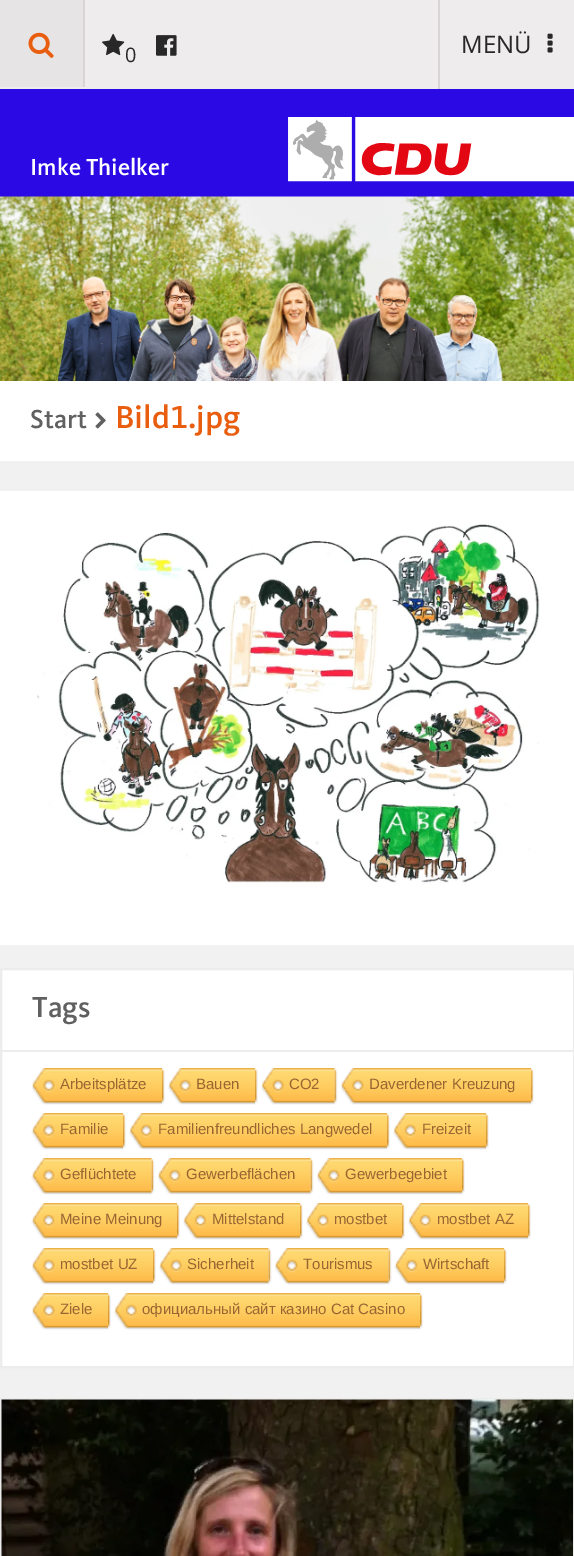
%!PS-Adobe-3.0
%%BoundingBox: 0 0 574 1556
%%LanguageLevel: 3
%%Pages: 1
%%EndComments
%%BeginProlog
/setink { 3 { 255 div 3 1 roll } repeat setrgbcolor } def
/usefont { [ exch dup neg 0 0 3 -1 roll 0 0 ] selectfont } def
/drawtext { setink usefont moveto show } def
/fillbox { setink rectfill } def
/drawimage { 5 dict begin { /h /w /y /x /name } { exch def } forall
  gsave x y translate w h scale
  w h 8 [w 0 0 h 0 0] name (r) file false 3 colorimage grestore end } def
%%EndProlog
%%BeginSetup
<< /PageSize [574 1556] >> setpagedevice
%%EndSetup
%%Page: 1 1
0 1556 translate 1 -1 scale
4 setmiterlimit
0 0 574 1556 255 255 255 fillbox
0 89 574 108 42 9 229 fillbox
0 0 574 89 238 236 237 fillbox
83 0 2 87 216 212 214 fillbox
0 0 83 87 231 228 229 fillbox
(assets/img1.rgb) 28 32 26 26 drawimage
(assets/img2.rgb) 102 33 23 23 drawimage
(0) 125 62 /OpenSans-Regular 20 40 40 40 drawtext
(assets/img3.rgb) 156 35 21 21 drawimage
438 0 2 89 216 212 214 fillbox
(MENÜ) 461 53 /OpenSans-Regular 24 40 40 40 drawtext
(assets/img4.rgb) 547 33 6 20 drawimage
(assets/img5.rgb) 0 196 574 185 drawimage
(Imke Thielker) 30 175 /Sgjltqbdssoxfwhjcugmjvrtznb-Medium 24 255 255 255 drawtext
(assets/img6.rgb) 288 117 286 65 drawimage
(Start) 30 428 /Sgjltqbdssoxfwhjcugmjvrtznb-Medium 27 96 96 96 drawtext
(assets/img7.rgb) 95 412 11 17 drawimage
(Bild1.jpg) 115 428 /Sgjltqbdssoxfwhjcugmjvrtznb-Medium 33 233 93 15 drawtext
0 461 574 937 241 241 241 fillbox
0 491 574 454 255 255 255 fillbox
(assets/img8.rgb) 37 524 503 361 drawimage
1 969 moveto 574 969 lineto 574 1367 lineto 1 1367 lineto closepath gsave fill grestore
236 236 236 setink
2 setlinewidth
stroke
2 1050 571 2 238 236 237 fillbox
(Tags) 32 1017 /Sgjltqbdssoxfwhjcugmjvrtznb-Medium 30 96 96 96 drawtext
(assets/img9.rgb) 32 1068 130 37 drawimage
(Arbeitsplätze) 60 1089 /LiberationSans-Regular 15 153 102 51 drawtext
(assets/img10.rgb) 162 1068 3 36 drawimage
(assets/img11.rgb) 168 1068 87 37 drawimage
(Bauen) 196 1089 /LiberationSans-Regular 15 153 102 51 drawtext
(assets/img10.rgb) 255 1068 3 36 drawimage
(assets/img12.rgb) 261 1068 74 37 drawimage
(CO2) 289 1089 /LiberationSans-Regular 15 153 102 51 drawtext
(assets/img13.rgb) 334 1069 4 35 drawimage
(assets/img14.rgb) 341 1068 190 37 drawimage
(Daverdener Kreuzung) 369 1089 /LiberationSans-Regular 15 153 102 51 drawtext
(assets/img15.rgb) 531 1068 3 36 drawimage
(assets/img16.rgb) 31 1113 92 37 drawimage
(Familie) 60 1134 /LiberationSans-Regular 15 153 102 51 drawtext
(assets/img10.rgb) 123 1113 3 36 drawimage
(assets/img17.rgb) 129 1113 258 37 drawimage
(Familienfreundliches Langwedel) 158 1134 /LiberationSans-Regular 15 153 102 51 drawtext
(assets/img15.rgb) 387 1113 3 36 drawimage
(assets/img18.rgb) 393 1113 93 37 drawimage
(Freizeit) 422 1134 /LiberationSans-Regular 15 153 102 51 drawtext
(assets/img15.rgb) 486 1113 3 36 drawimage
(assets/img19.rgb) 31 1158 121 37 drawimage
(Geflüchtete) 60 1179 /LiberationSans-Regular 15 153 102 51 drawtext
(assets/img13.rgb) 151 1159 4 35 drawimage
(assets/img20.rgb) 158 1158 153 37 drawimage
(Gewerbeflächen) 186 1179 /LiberationSans-Regular 15 153 102 51 drawtext
(assets/img13.rgb) 310 1159 4 35 drawimage
(assets/img21.rgb) 317 1158 145 37 drawimage
(Gewerbegebiet) 345 1179 /LiberationSans-Regular 15 153 102 51 drawtext
(assets/img15.rgb) 462 1158 3 36 drawimage
(assets/img22.rgb) 31 1203 146 37 drawimage
(Meine Meinung) 60 1224 /LiberationSans-Regular 15 153 102 51 drawtext
(assets/img10.rgb) 177 1203 3 36 drawimage
(assets/img23.rgb) 183 1203 117 37 drawimage
(Mittelstand) 212 1224 /LiberationSans-Regular 15 153 102 51 drawtext
(assets/img15.rgb) 300 1203 3 36 drawimage
(assets/img24.rgb) 306 1203 96 37 drawimage
(mostbet) 334 1224 /LiberationSans-Regular 15 153 102 51 drawtext
(assets/img15.rgb) 402 1203 3 36 drawimage
(assets/img25.rgb) 408 1203 120 37 drawimage
(mostbet AZ) 437 1224 /LiberationSans-Regular 15 153 102 51 drawtext
(assets/img15.rgb) 528 1203 3 36 drawimage
(assets/img26.rgb) 32 1248 121 37 drawimage
(mostbet UZ) 60 1269 /LiberationSans-Regular 15 153 102 51 drawtext
(assets/img10.rgb) 153 1248 3 36 drawimage
(assets/img27.rgb) 159 1248 110 37 drawimage
(Sicherheit) 187 1269 /LiberationSans-Regular 15 153 102 51 drawtext
(assets/img13.rgb) 268 1249 4 35 drawimage
(assets/img28.rgb) 275 1248 114 37 drawimage
(Tourismus) 303 1269 /LiberationSans-Regular 15 153 102 51 drawtext
(assets/img13.rgb) 388 1249 4 35 drawimage
(assets/img29.rgb) 394 1248 110 37 drawimage
(Wirtschaft) 423 1269 /LiberationSans-Regular 15 153 102 51 drawtext
(assets/img15.rgb) 504 1248 3 36 drawimage
(assets/img30.rgb) 32 1293 76 37 drawimage
(Ziele) 60 1314 /LiberationSans-Regular 15 153 102 51 drawtext
(assets/img10.rgb) 108 1293 3 36 drawimage
(assets/img31.rgb) 114 1293 306 37 drawimage
(официальный сайт казино Cat Casino) 142 1314 /LiberationSans-Regular 15 153 102 51 drawtext
(assets/img15.rgb) 420 1293 3 36 drawimage
236 236 236 setink
1 1399 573 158 rectstroke
(assets/img32.rgb) 1 1399 572 157 drawimage
showpage
%%EOF
